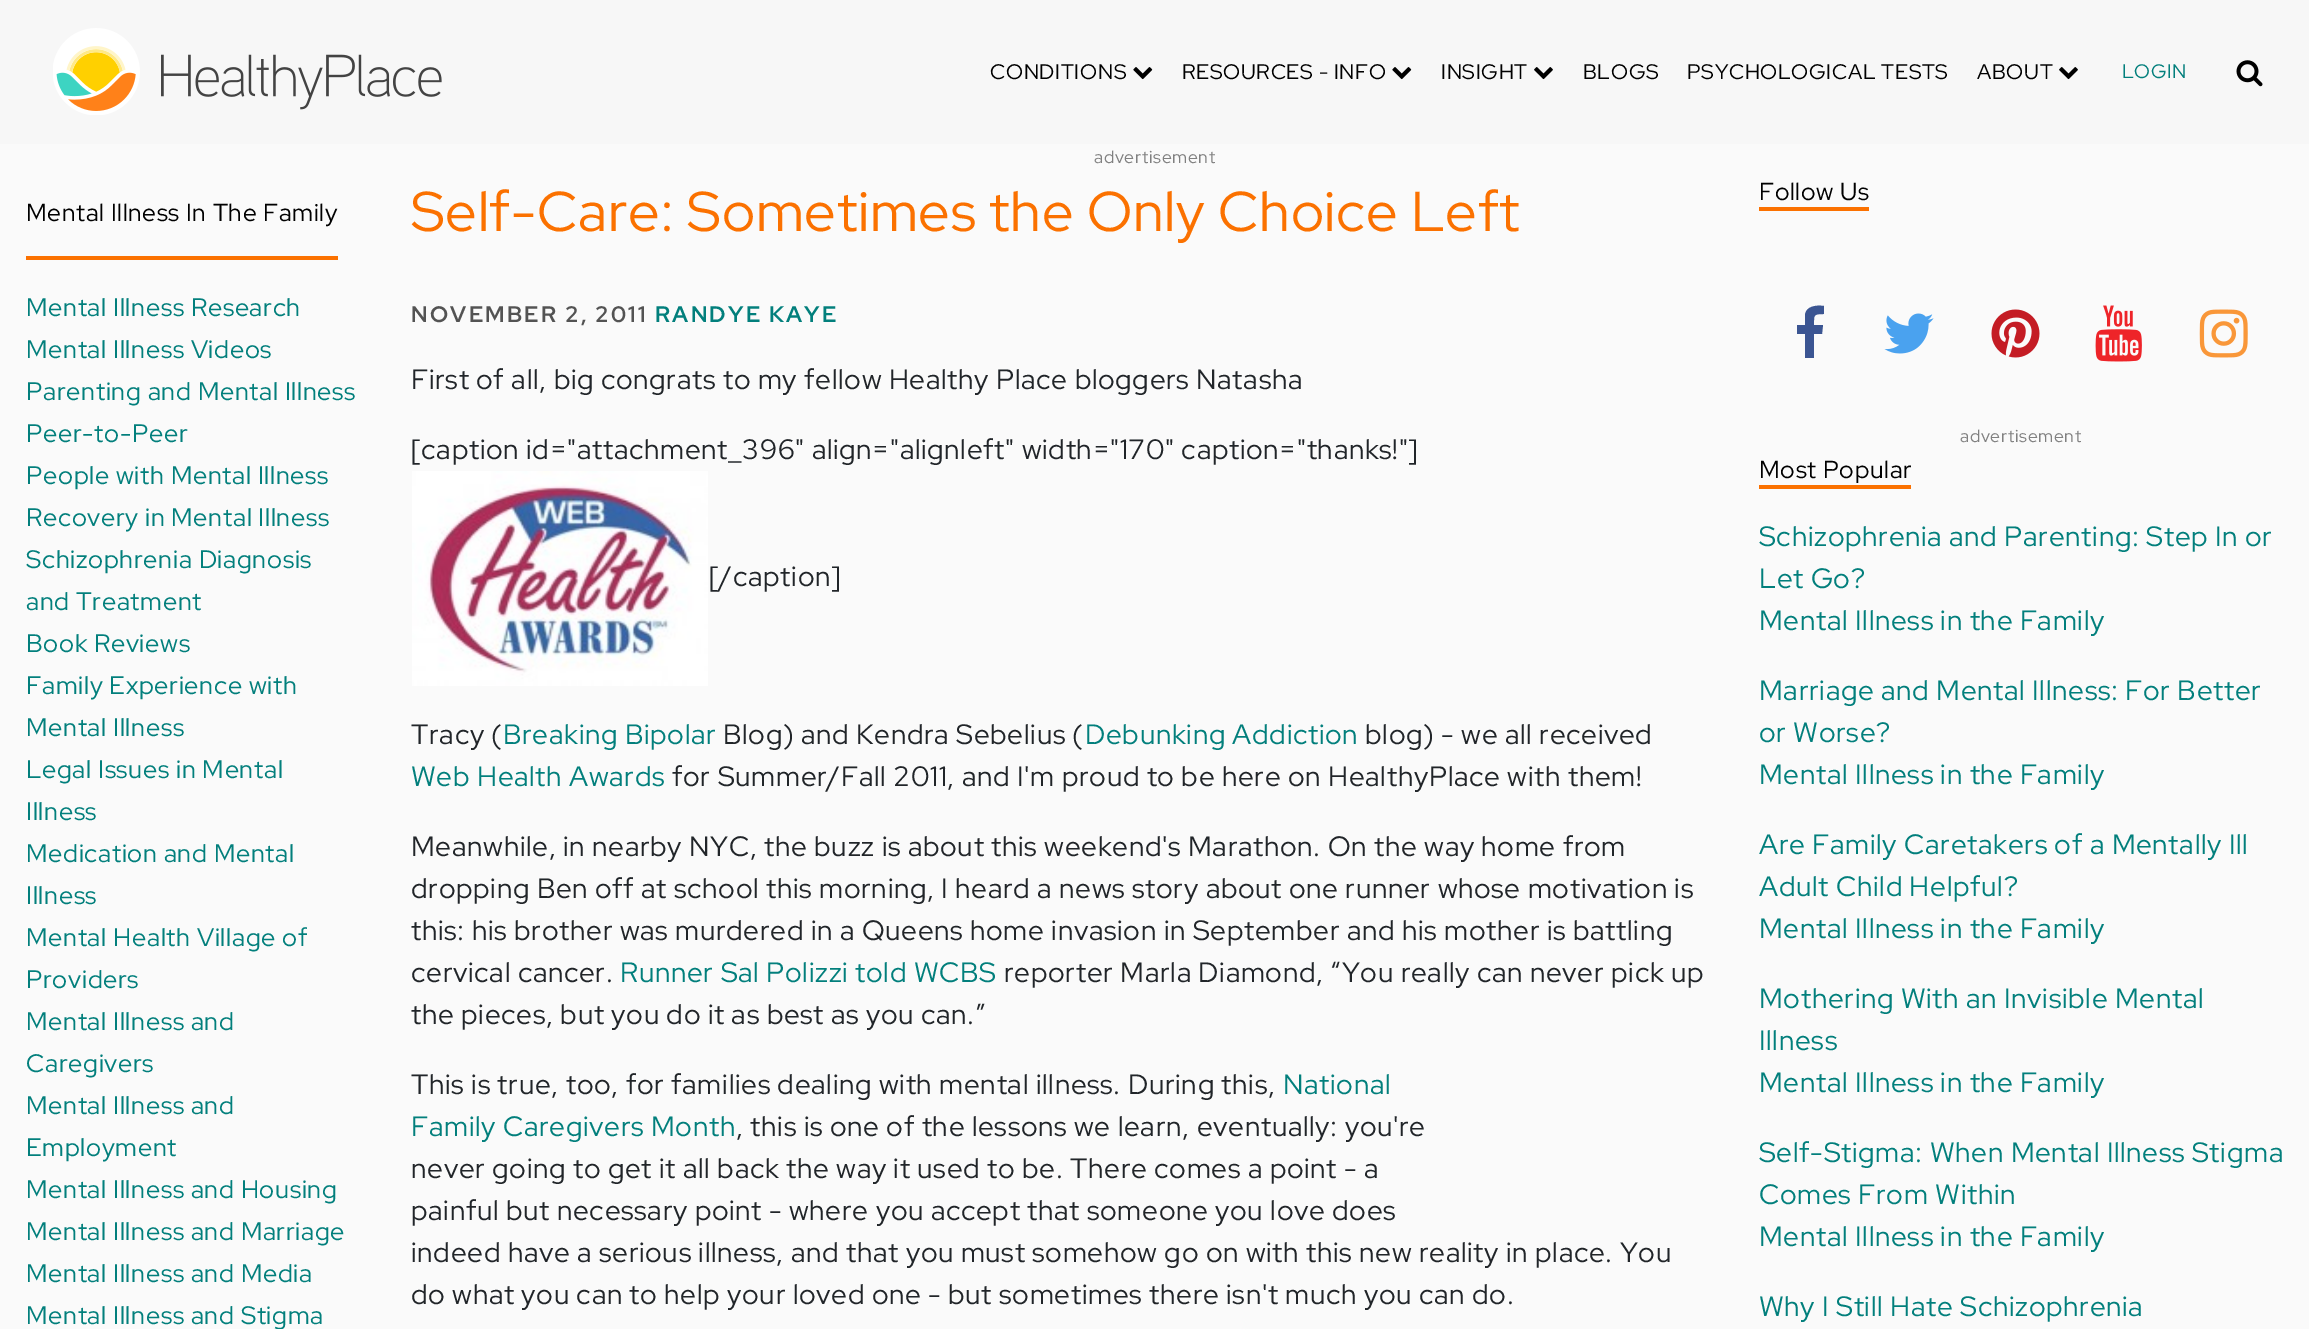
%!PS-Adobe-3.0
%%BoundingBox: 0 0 2309 1329
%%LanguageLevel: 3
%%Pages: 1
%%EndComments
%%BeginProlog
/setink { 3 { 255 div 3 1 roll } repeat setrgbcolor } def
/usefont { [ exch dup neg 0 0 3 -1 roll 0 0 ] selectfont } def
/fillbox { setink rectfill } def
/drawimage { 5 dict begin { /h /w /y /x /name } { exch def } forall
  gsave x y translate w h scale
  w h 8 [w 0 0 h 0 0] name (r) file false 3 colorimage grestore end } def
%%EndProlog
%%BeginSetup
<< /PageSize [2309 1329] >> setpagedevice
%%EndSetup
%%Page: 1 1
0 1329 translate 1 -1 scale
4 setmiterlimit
0 0 2309 1329 250 250 250 fillbox
0 0 2309 144 247 247 247 fillbox
(assets/img1.rgb) 53 28 389 87 drawimage
/RedHatDisplay-Regular 21 usefont
0 0 0 setink
990 79 moveto 0.7 0 (CONDITIONS) ashow
(assets/img2.rgb) 1133 67 20 13 drawimage
1182 79 moveto 0.7 0 (RESOURCES - INFO) ashow
(assets/img2.rgb) 1392 67 20 13 drawimage
1441 79 moveto 0.7 0 (INSIGHT) ashow
(assets/img3.rgb) 1534 67 19 13 drawimage
1583 79 moveto 0.7 0 (BLOGS) ashow
1687 79 moveto 0.7 0 (PSYCHOLOGICAL TESTS) ashow
1977 79 moveto 0.7 0 (ABOUT) ashow
(assets/img3.rgb) 2059 67 19 13 drawimage
/RedHatDisplay-Regular 19.5 usefont
2 127 124 setink
2122 78 moveto 0.7 0 (LOGIN) ashow
(assets/img4.rgb) 2236 60 27 27 drawimage
/RedHatDisplay-Regular 17.5 usefont
128 128 128 setink
1094 163 moveto 0.7 0 (advertisement) ashow
26 256 312 4 251 113 0 fillbox
/RedHatDisplay-Regular 24.5 usefont
0 0 0 setink
26 221 moveto 0.7 0 (Mental Illness In The Family) ashow
/RedHatDisplay-Regular 25.25 usefont
2 127 124 setink
26 316 moveto 0.7 0 (Mental Illness Research) ashow
26 358 moveto 0.7 0 (Mental Illness Videos) ashow
26 400 moveto 0.7 0 (Parenting and Mental Illness) ashow
26 442 moveto 0.7 0 (Peer-to-Peer) ashow
26 484 moveto 0.7 0 (People with Mental Illness) ashow
26 526 moveto 0.7 0 (Recovery in Mental Illness) ashow
26 568 moveto 0.7 0 (Schizophrenia Diagnosis) ashow
26 610 moveto 0.7 0 (and Treatment) ashow
26 652 moveto 0.7 0 (Book Reviews) ashow
26 694 moveto 0.7 0 (Family Experience with) ashow
26 736 moveto 0.7 0 (Mental Illness) ashow
26 778 moveto 0.7 0 (Legal Issues in Mental) ashow
26 820 moveto 0.7 0 (Illness) ashow
26 862 moveto 0.7 0 (Medication and Mental) ashow
26 904 moveto 0.7 0 (Illness) ashow
26 946 moveto 0.7 0 (Mental Health Village of) ashow
26 988 moveto 0.7 0 (Providers) ashow
26 1030 moveto 0.7 0 (Mental Illness and) ashow
26 1072 moveto 0.7 0 (Caregivers) ashow
26 1114 moveto 0.7 0 (Mental Illness and) ashow
26 1156 moveto 0.7 0 (Employment) ashow
26 1198 moveto 0.7 0 (Mental Illness and Housing) ashow
26 1240 moveto 0.7 0 (Mental Illness and Marriage) ashow
26 1282 moveto 0.7 0 (Mental Illness and Media) ashow
26 1324 moveto 0.7 0 (Mental Illness and Stigma) ashow
/RedHatDisplay-Regular 56 usefont
251 113 0 setink
411 231 moveto 0.7 0 (Self-Care: Sometimes the Only Choice Left) ashow
/RedHatDisplay-Bold 22.4 usefont
83 83 83 setink
411 322 moveto 2.25 0 (NOVEMBER 2, 2011) ashow
2 127 124 setink
655 322 moveto 2.25 0 (RANDYE KAYE) ashow
/RedHatDisplay-Regular 28 usefont
33 37 41 setink
411 389 moveto 0.7 0 (First of all, big congrats to my fellow Healthy Place bloggers Natasha) ashow
411 459 moveto 0.7 0 ([caption id="attachment_396" align="alignleft" width="170" caption="thanks!"]) ashow
(assets/img5.rgb) 412 471 296 215 drawimage
709 586 moveto 0.7 0 ([/caption]) ashow
411 744 moveto 0.7 0 (Tracy \() ashow
2 127 124 setink
503 744 moveto 0.7 0 (Breaking Bipolar) ashow
33 37 41 setink
723 744 moveto 0.7 0 (Blog\) and Kendra Sebelius \() ashow
2 127 124 setink
1085 744 moveto 0.7 0 (Debunking Addiction) ashow
33 37 41 setink
1365 744 moveto 0.7 0 (blog\) - we all received) ashow
2 127 124 setink
411 786 moveto 0.7 0 (Web Health Awards) ashow
33 37 41 setink
672 786 moveto 0.7 0 (for Summer/Fall 2011, and I'm proud to be here on HealthyPlace with them!) ashow
411 856 moveto 0.7 0 (Meanwhile, in nearby NYC, the buzz is about this weekend's Marathon. On the way home from) ashow
411 898 moveto 0.7 0 (dropping Ben off at school this morning, I heard a news story about one runner whose motivation is) ashow
411 940 moveto 0.7 0 (this: his brother was murdered in a Queens home invasion in September and his mother is battling) ashow
411 982 moveto 0.7 0 (cervical cancer.) ashow
2 127 124 setink
620 982 moveto 0.7 0 (Runner Sal Polizzi told WCBS) ashow
33 37 41 setink
1004 982 moveto 0.7 0 (reporter Marla Diamond, “You really can never pick up) ashow
411 1024 moveto 0.7 0 (the pieces, but you do it as best as you can.”) ashow
411 1094 moveto 0.7 0 (This is true, too, for families dealing with mental illness. During this,) ashow
2 127 124 setink
1283 1094 moveto 0.7 0 (National) ashow
411 1136 moveto 0.7 0 (Family Caregivers Month) ashow
33 37 41 setink
736 1136 moveto 0.7 0 (, this is one of the lessons we learn, eventually: you're) ashow
411 1178 moveto 0.7 0 (never going to get it all back the way it used to be. There comes a point - a) ashow
411 1220 moveto 0.7 0 (painful but necessary point - where you accept that someone you love does) ashow
411 1262 moveto 0.7 0 (indeed have a serious illness, and that you must somehow go on with this new reality in place. You) ashow
411 1304 moveto 0.7 0 (do what you can to help your loved one - but sometimes there isn't much you can do.) ashow
1759 207 110 4 251 113 0 fillbox
/RedHatDisplay-Regular 24.5 usefont
0 0 0 setink
1759 200 moveto 0.7 0 (Follow Us) ashow
59 85 146 setink
1824 306 moveto 1824 314 lineto 1813 314 1814 315 1814 325 curveto 1823 325 lineto 1822 334 lineto 1814 334 lineto 1814 358 lineto 1805 358 lineto 1805 334 lineto 1797 334 lineto 1797 325 lineto 1805 325 lineto 1805 315 lineto 1806 306 1816 305 1824 306 curveto closepath fill
(assets/img6.rgb) 1884 313 50 41 drawimage
(assets/img7.rgb) 1991 309 49 49 drawimage
(assets/img8.rgb) 2095 305 47 57 drawimage
(assets/img9.rgb) 2199 309 49 49 drawimage
/RedHatDisplay-Regular 17.5 usefont
128 128 128 setink
1960 442 moveto 0.7 0 (advertisement) ashow
1759 485 152 4 251 113 0 fillbox
/RedHatDisplay-Regular 24.5 usefont
0 0 0 setink
1759 478 moveto 0.7 0 (Most Popular) ashow
/RedHatDisplay-Regular 28 usefont
2 127 124 setink
1759 546 moveto 0.7 0 (Schizophrenia and Parenting: Step In or) ashow
1759 588 moveto 0.7 0 (Let Go?) ashow
1759 630 moveto 0.7 0 (Mental Illness in the Family) ashow
1759 700 moveto 0.7 0 (Marriage and Mental Illness: For Better) ashow
1759 742 moveto 0.7 0 (or Worse?) ashow
1759 784 moveto 0.7 0 (Mental Illness in the Family) ashow
1759 854 moveto 0.7 0 (Are Family Caretakers of a Mentally Ill) ashow
1759 896 moveto 0.7 0 (Adult Child Helpful?) ashow
1759 938 moveto 0.7 0 (Mental Illness in the Family) ashow
1759 1008 moveto 0.7 0 (Mothering With an Invisible Mental) ashow
1759 1050 moveto 0.7 0 (Illness) ashow
1759 1092 moveto 0.7 0 (Mental Illness in the Family) ashow
1759 1162 moveto 0.7 0 (Self-Stigma: When Mental Illness Stigma) ashow
1759 1204 moveto 0.7 0 (Comes From Within) ashow
1759 1246 moveto 0.7 0 (Mental Illness in the Family) ashow
1759 1316 moveto 0.7 0 (Why I Still Hate Schizophrenia) ashow
showpage
%%EOF
